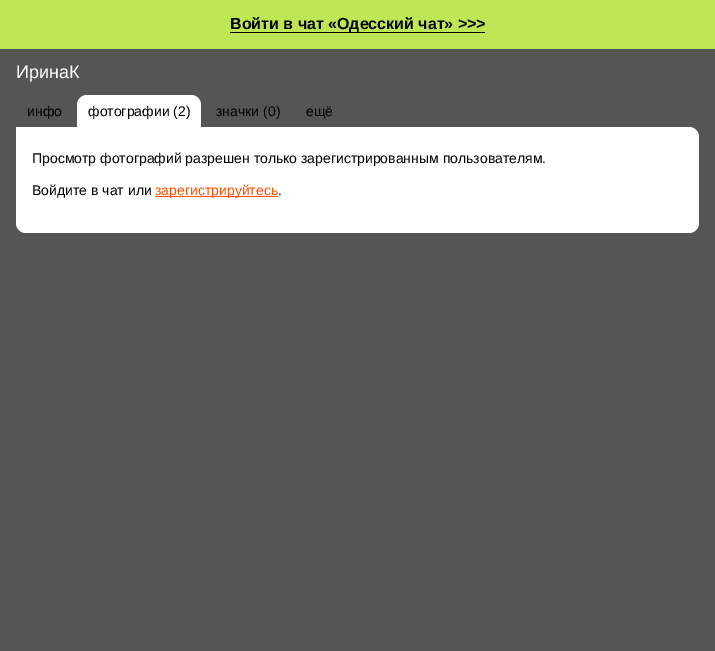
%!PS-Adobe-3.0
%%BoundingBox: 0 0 715 651
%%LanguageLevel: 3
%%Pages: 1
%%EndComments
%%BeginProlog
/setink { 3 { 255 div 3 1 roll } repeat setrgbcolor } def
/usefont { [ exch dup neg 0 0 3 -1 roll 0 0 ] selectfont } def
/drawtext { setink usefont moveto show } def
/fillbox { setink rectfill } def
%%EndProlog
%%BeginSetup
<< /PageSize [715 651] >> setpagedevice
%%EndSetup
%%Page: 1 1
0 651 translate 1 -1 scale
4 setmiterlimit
0 0 715 651 85 85 85 fillbox
0 0 715 49 190 230 85 fillbox
230 32 255 1 0 0 0 fillbox
(Войти в чат «Одесский чат» >>>) 230 29 /LiberationSans-Bold 16 0 0 0 drawtext
(ИринаК) 16 78 /LiberationSans-Regular 18 255 255 255 drawtext
(инфо) 27 116 /LiberationSans-Regular 14 0 0 0 drawtext
255 255 255 setink
87 95 moveto 191 95 lineto 196.5 95 201 99.5 201 105 curveto 201 127 lineto 77 127 lineto 77 105 lineto 77 99.5 81.5 95 87 95 curveto closepath fill
(фотографии \(2\)) 88 116 /LiberationSans-Regular 14 0 0 0 drawtext
(значки \(0\)) 216 116 /LiberationSans-Regular 14 0 0 0 drawtext
(ещё) 306 116 /LiberationSans-Regular 14 0 0 0 drawtext
255 255 255 setink
16 127 moveto 689 127 lineto 694.5 127 699 131.5 699 137 curveto 699 223 lineto 699 228.5 694.5 233 689 233 curveto 26 233 lineto 20.5 233 16 228.5 16 223 curveto closepath fill
(Просмотр фотографий разрешен только зарегистрированным пользователям.) 32 163 /LiberationSans-Regular 14 0 0 0 drawtext
(Войдите в чат или) 32 195 /LiberationSans-Regular 14 0 0 0 drawtext
155 196 123 1 255 81 0 fillbox
(зарегистрируйтесь) 155 195 /LiberationSans-Regular 14 255 81 0 drawtext
(.) 278 195 /LiberationSans-Regular 14 0 0 0 drawtext
showpage
%%EOF
